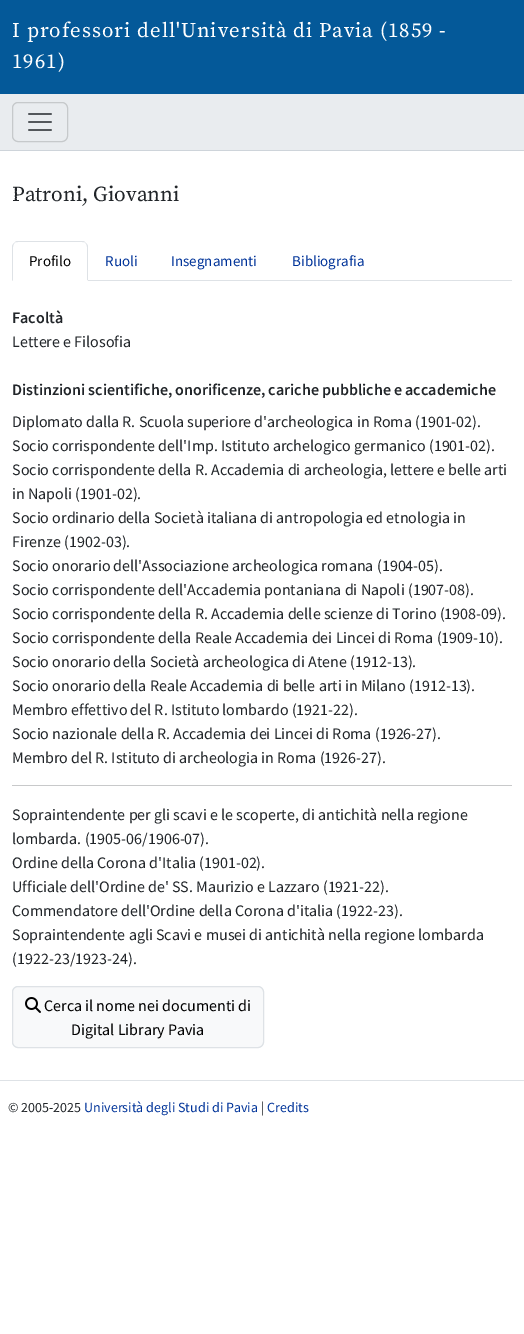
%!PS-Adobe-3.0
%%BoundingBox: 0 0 524 1334
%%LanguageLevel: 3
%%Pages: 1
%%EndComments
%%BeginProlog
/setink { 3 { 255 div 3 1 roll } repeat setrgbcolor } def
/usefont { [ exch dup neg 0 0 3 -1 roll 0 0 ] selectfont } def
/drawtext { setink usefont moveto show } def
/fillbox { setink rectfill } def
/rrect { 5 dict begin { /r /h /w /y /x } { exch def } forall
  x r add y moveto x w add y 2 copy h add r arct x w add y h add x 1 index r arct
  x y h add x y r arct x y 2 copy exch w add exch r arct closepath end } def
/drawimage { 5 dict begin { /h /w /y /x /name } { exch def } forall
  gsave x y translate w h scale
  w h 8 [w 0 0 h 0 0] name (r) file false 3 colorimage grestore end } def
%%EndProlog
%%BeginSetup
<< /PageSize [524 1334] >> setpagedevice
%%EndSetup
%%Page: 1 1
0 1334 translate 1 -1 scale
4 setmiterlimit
0 0 524 1334 255 255 255 fillbox
0 0 524 94 4 89 153 fillbox
/SourceSerifPro-Regular 20.8 usefont
255 255 255 setink
12 37 moveto 1 0 (I professori dell'Università di Pavia \(1859 -) ashow
12 68 moveto 1 0 (1961\)) ashow
0 94 524 56 233 236 239 fillbox
0 150 524 1 206 212 218 fillbox
198 201 203 setink
12.5 102.5 55 39 5.5 rrect stroke
(assets/img1.rgb) 28 113 24 18 drawimage
0 1080 524 1 222 226 230 fillbox
(Patroni, Giovanni) 12 201 /SourceSerifPro-Regular 21.25 33 37 41 drawtext
88 280 424 1 222 226 230 fillbox
18 241 moveto 16 241 15 242 14 243 curveto 15 242 16 242 18 242 curveto 82 242 lineto 84 242 85 242 86 243 curveto 85 242 84 241 82 241 curveto closepath fill
88 281 moveto 88 247 lineto 88 245.5 87 244 86 243 curveto 85.5 243.5 lineto 86.5 244 87 245.5 87 247 curveto 87 280 lineto closepath fill
255 255 255 setink
88 281 moveto 87 280 lineto 13 280 lineto 12 281 lineto closepath fill
222 226 230 setink
12 281 moveto 13 280 lineto 13 247 lineto 13 245.5 13.5 244 14.5 243.5 curveto 14 243 lineto 13 244 12 245.5 12 247 curveto closepath fill
(Profilo) 29 266 /SourceSansPro-Regular 15 0 0 0 drawtext
(Ruoli) 105 266 /SourceSansPro-Regular 15 0 51 153 drawtext
(Insegnamenti) 171 266 /SourceSansPro-Regular 15 0 51 153 drawtext
(Bibliografia) 292 266 /SourceSansPro-Regular 15 0 51 153 drawtext
(Facoltà) 12 323 /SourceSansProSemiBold-SemiBold 16 33 37 41 drawtext
(Lettere e Filosofia) 12 347 /SourceSansPro-Regular 16 33 37 41 drawtext
(Distinzioni scientifiche, onorificenze, cariche pubbliche e accademiche) 12 395 /SourceSansProSemiBold-SemiBold 16 33 37 41 drawtext
(Diplomato dalla R. Scuola superiore d'archeologica in Roma \(1901-02\).) 12 427 /SourceSansPro-Regular 16 33 37 41 drawtext
(Socio corrispondente dell'Imp. Istituto archelogico germanico \(1901-02\).) 12 451 /SourceSansPro-Regular 16 33 37 41 drawtext
(Socio corrispondente della R. Accademia di archeologia, lettere e belle arti) 12 475 /SourceSansPro-Regular 16 33 37 41 drawtext
(in Napoli \(1901-02\).) 12 499 /SourceSansPro-Regular 16 33 37 41 drawtext
(Socio ordinario della Società italiana di antropologia ed etnologia in) 12 523 /SourceSansPro-Regular 16 33 37 41 drawtext
(Firenze \(1902-03\).) 12 547 /SourceSansPro-Regular 16 33 37 41 drawtext
(Socio onorario dell'Associazione archeologica romana \(1904-05\).) 12 571 /SourceSansPro-Regular 16 33 37 41 drawtext
(Socio corrispondente dell'Accademia pontaniana di Napoli \(1907-08\).) 12 595 /SourceSansPro-Regular 16 33 37 41 drawtext
(Socio corrispondente della R. Accademia delle scienze di Torino \(1908-09\).) 12 619 /SourceSansPro-Regular 16 33 37 41 drawtext
(Socio corrispondente della Reale Accademia dei Lincei di Roma \(1909-10\).) 12 643 /SourceSansPro-Regular 16 33 37 41 drawtext
(Socio onorario della Società archeologica di Atene \(1912-13\).) 12 667 /SourceSansPro-Regular 16 33 37 41 drawtext
(Socio onorario della Reale Accademia di belle arti in Milano \(1912-13\).) 12 691 /SourceSansPro-Regular 16 33 37 41 drawtext
(Membro effettivo del R. Istituto lombardo \(1921-22\).) 12 715 /SourceSansPro-Regular 16 33 37 41 drawtext
(Socio nazionale della R. Accademia dei Lincei di Roma \(1926-27\).) 12 739 /SourceSansPro-Regular 16 33 37 41 drawtext
(Membro del R. Istituto di archeologia in Roma \(1926-27\).) 12 763 /SourceSansPro-Regular 16 33 37 41 drawtext
12 785 500 1 200 201 202 fillbox
(Sopraintendente per gli scavi e le scoperte, di antichità nella regione) 12 820 /SourceSansPro-Regular 16 33 37 41 drawtext
(lombarda. \(1905-06/1906-07\).) 12 844 /SourceSansPro-Regular 16 33 37 41 drawtext
(Ordine della Corona d'Italia \(1901-02\).) 12 868 /SourceSansPro-Regular 16 33 37 41 drawtext
(Ufficiale dell'Ordine de' SS. Maurizio e Lazzaro \(1921-22\).) 12 892 /SourceSansPro-Regular 16 33 37 41 drawtext
(Commendatore dell'Ordine della Corona d'italia \(1922-23\).) 12 916 /SourceSansPro-Regular 16 33 37 41 drawtext
(Sopraintendente agli Scavi e musei di antichità nella regione lombarda) 12 940 /SourceSansPro-Regular 16 33 37 41 drawtext
(\(1922-23/1923-24\).) 12 964 /SourceSansPro-Regular 16 33 37 41 drawtext
248 249 250 setink
12.5 986.5 251 61 5.5 rrect gsave fill grestore
222 226 230 setink
stroke
(assets/img2.rgb) 25 997 16 16 drawimage
(Cerca il nome nei documenti di) 44 1011 /SourceSansPro-Regular 16 0 0 0 drawtext
(Digital Library Pavia) 71 1035 /SourceSansPro-Regular 16 0 0 0 drawtext
(© 2005-2025) 8 1112 /SourceSansPro-Regular 14 33 37 41 drawtext
(Università degli Studi di Pavia) 84 1112 /SourceSansPro-Regular 14 0 51 153 drawtext
(|) 261 1112 /SourceSansPro-Regular 14 33 37 41 drawtext
(Credits) 267 1112 /SourceSansPro-Regular 14 0 51 153 drawtext
showpage
%%EOF
